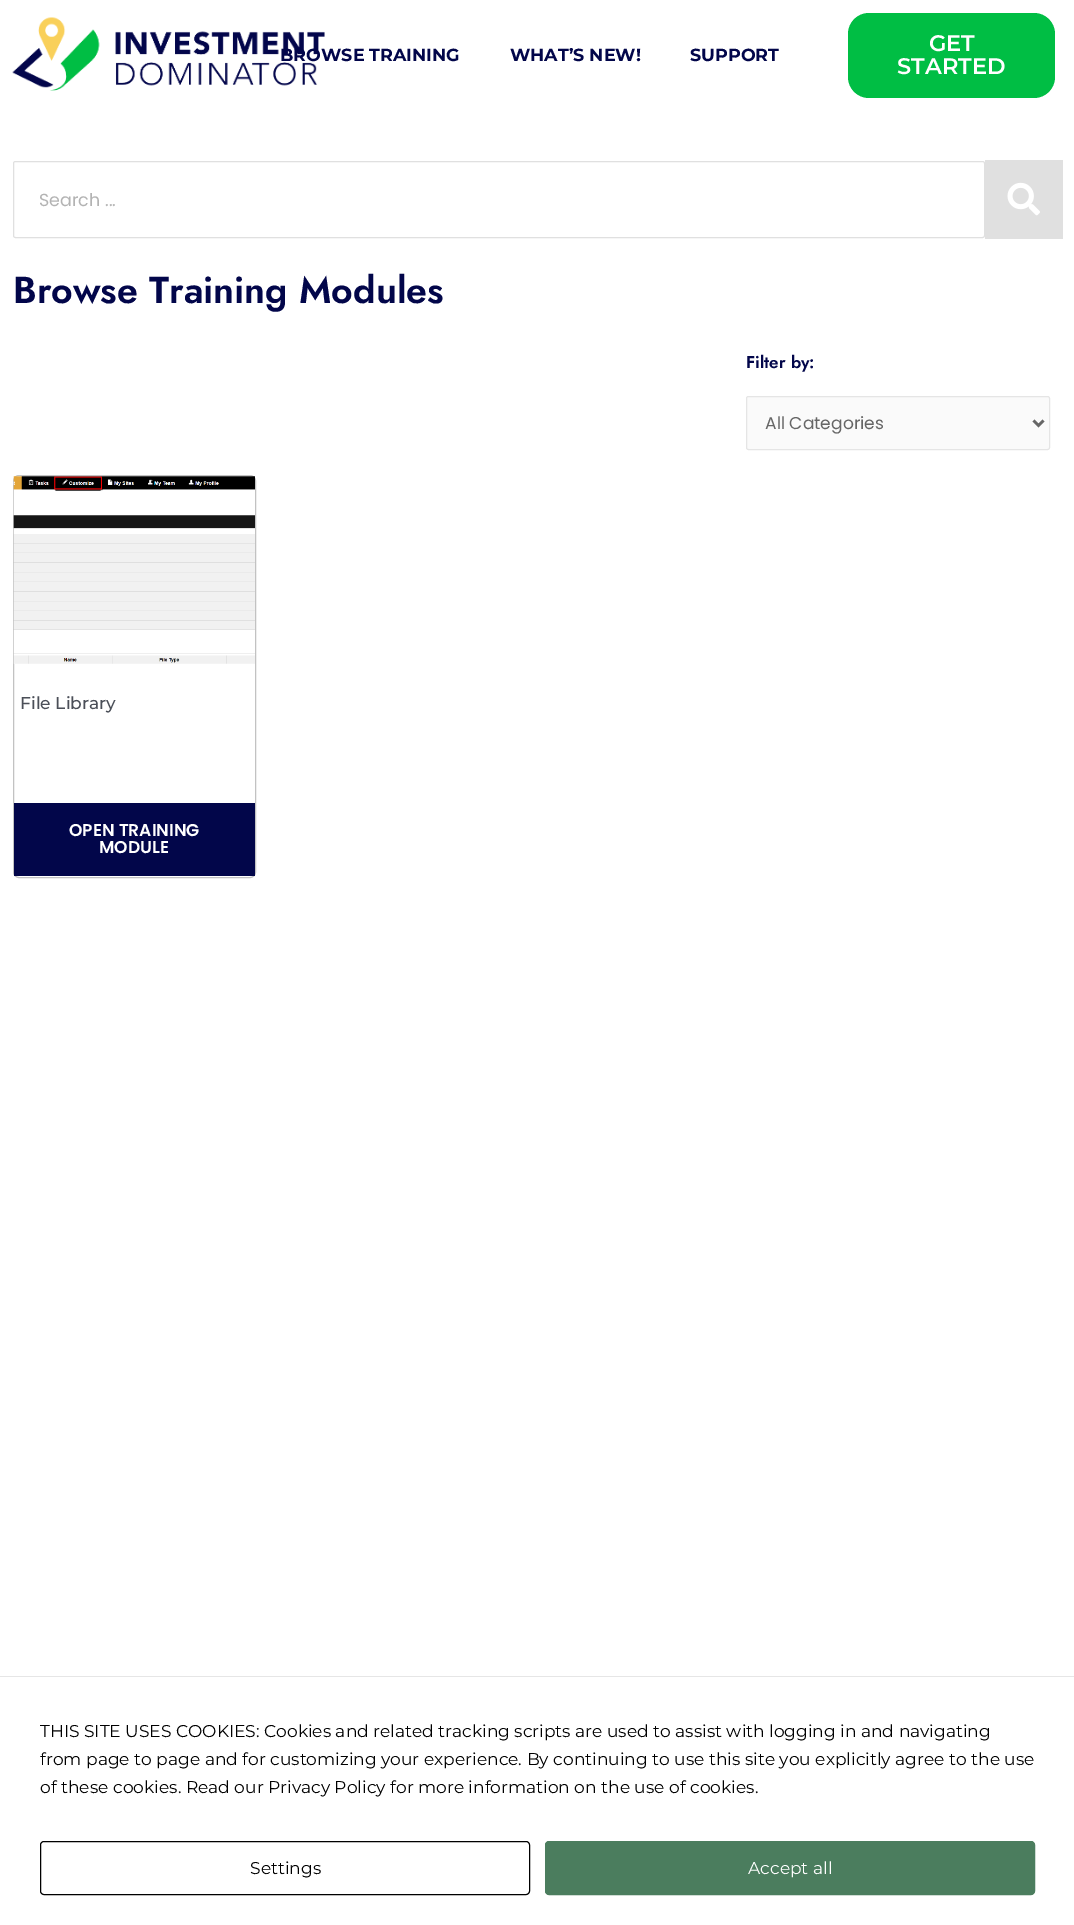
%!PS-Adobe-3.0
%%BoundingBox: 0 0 1074 1925
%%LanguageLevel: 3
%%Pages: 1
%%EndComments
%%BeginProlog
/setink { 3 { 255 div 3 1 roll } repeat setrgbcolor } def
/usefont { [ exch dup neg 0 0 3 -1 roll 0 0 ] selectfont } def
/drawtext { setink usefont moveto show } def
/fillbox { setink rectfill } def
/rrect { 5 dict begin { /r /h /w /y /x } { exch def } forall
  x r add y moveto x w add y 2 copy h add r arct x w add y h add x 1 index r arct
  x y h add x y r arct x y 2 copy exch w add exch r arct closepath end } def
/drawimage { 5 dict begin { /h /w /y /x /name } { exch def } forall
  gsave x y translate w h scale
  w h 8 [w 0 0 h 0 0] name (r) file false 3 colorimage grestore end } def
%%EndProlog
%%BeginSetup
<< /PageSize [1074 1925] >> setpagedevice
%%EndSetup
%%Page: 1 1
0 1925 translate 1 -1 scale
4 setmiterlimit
0 0 1074 1925 255 255 255 fillbox
(assets/img1.rgb) 12 17 313 74 drawimage
(BROWSE TRAINING) 280 61 /Montserrat-Bold 17.5 2 6 74 drawtext
(WHAT’S NEW!) 510 61 /Montserrat-Bold 17.5 2 6 74 drawtext
(SUPPORT) 690 61 /Montserrat-Bold 17.5 2 6 74 drawtext
0 190 68 setink
848 13 207 85 21 rrect fill
(GET) 929 51 /Montserrat-SemiBold 22.5 255 255 255 drawtext
(STARTED) 897 74 /Montserrat-SemiBold 22.5 255 255 255 drawtext
224 224 224 setink
13.5 161.5 971 76 2 rrect stroke
(Search ...) 39 206 /Poppins-Regular 17.5 179 179 179 drawtext
985 160 78 79 224 224 224 fillbox
(assets/img2.rgb) 1007 182 33 34 drawimage
(Browse Training Modules) 13 303 /Jost-SemiBold 37.5 2 6 74 drawtext
(Filter by:) 746 368 /Jost-SemiBold 17.1 2 6 74 drawtext
250 250 250 setink
746.5 396.5 303 53 2 rrect gsave fill grestore
229 229 229 setink
stroke
102 102 102 setink
2.5 setlinewidth
1033.5 420.5 moveto 1038.5 425.5 lineto 1043.5 420.5 lineto stroke
(All Categories) 765 429 /Poppins-Regular 17.1 102 102 102 drawtext
194 194 194 setink
1 setlinewidth
13.5 475.5 242 402 5.5 rrect stroke
(assets/img3.rgb) 13 476 242 188 drawimage
(File Library) 20 709 /Montserrat-Medium 17.1 75 79 88 drawtext
14 803 241 73 2 6 74 fillbox
(OPEN TRAINING) 69 836 /Poppins-SemiBold 17.1 255 255 255 drawtext
(MODULE) 99 853 /Poppins-SemiBold 17.1 255 255 255 drawtext
0 1676 1074 1 230 230 230 fillbox
(THIS SITE USES COOKIES: Cookies and related tracking scripts are used to assist with logging in and navigating) 40 1737 /Montserrat-Regular 17.1 0 0 0 drawtext
(from page to page and for customizing your experience. By continuing to use this site you explicitly agree to the use) 40 1765 /Montserrat-Regular 17.1 0 0 0 drawtext
(of these cookies. Read our Privacy Policy for more information on the use of cookies.) 40 1793 /Montserrat-Regular 17.1 0 0 0 drawtext
40.5 1841.5 489 53 3.5 rrect stroke
(Settings) 250 1874 /Montserrat-Regular 17.1 0 0 0 drawtext
75 125 94 setink
545.5 1841.5 489 53 3.5 rrect gsave fill grestore
stroke
(Accept all) 748 1874 /Montserrat-Regular 17.1 255 255 255 drawtext
showpage
%%EOF
